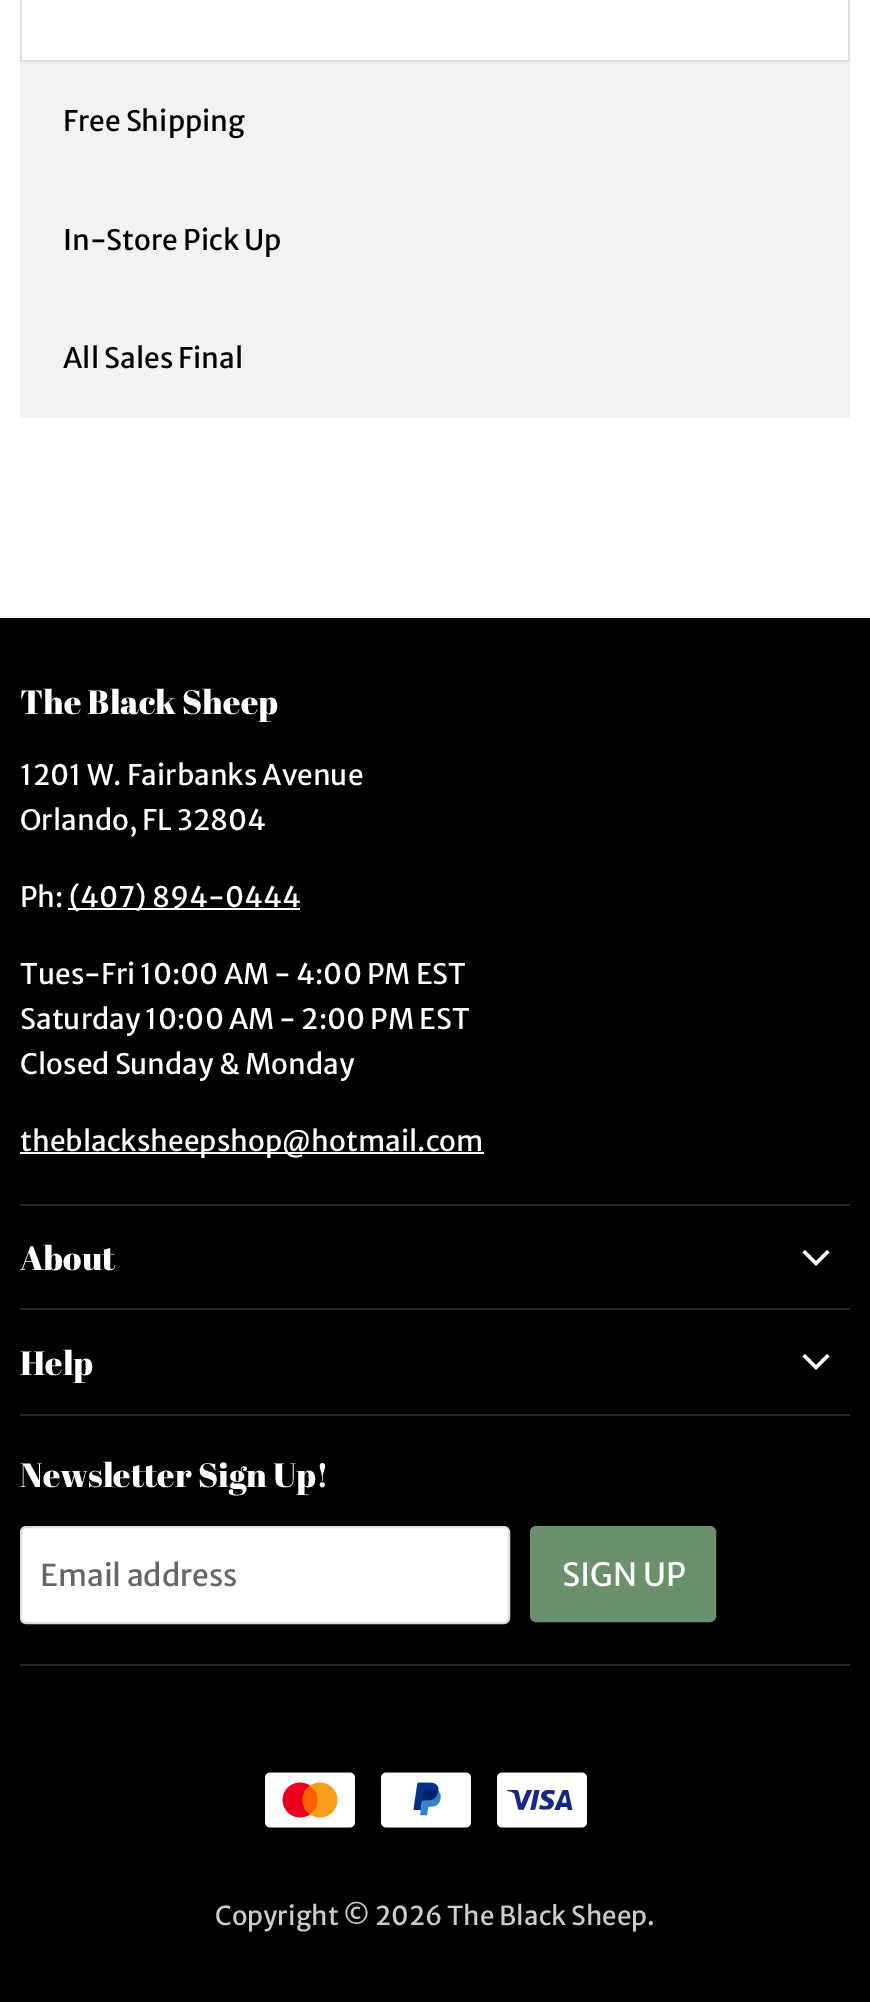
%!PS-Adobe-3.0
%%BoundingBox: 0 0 870 2002
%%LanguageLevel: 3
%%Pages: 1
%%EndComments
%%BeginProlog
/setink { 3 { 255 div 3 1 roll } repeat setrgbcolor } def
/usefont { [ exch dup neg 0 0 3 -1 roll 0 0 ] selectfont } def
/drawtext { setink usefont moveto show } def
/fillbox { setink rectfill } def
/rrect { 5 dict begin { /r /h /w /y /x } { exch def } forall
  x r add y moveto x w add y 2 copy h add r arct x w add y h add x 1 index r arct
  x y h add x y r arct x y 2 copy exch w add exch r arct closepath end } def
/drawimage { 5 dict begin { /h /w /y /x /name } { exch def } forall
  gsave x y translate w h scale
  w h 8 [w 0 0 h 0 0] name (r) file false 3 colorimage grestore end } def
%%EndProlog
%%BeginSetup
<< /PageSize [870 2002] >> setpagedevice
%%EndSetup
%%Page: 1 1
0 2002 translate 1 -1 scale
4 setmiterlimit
0 0 870 2002 255 255 255 fillbox
848 0 2 62 221 221 221 fillbox
20 60 830 2 221 221 221 fillbox
20 0 2 62 221 221 221 fillbox
20 62 830 356 242 242 242 fillbox
(Free Shipping) 63 131 /MerriweatherSans-Regular 28.1 0 0 0 drawtext
(In-Store Pick Up) 63 250 /MerriweatherSans-Regular 28.1 0 0 0 drawtext
(All Sales Final) 63 368 /MerriweatherSans-Regular 28.1 0 0 0 drawtext
0 618 870 1384 0 0 0 fillbox
20 1204 830 2 38 38 38 fillbox
(The Black Sheep) 20 714 /AbrilFatface-Regular 33.75 255 255 255 drawtext
(1201 W. Fairbanks Avenue) 20 785 /MerriweatherSans-Regular 28.1 255 255 255 drawtext
(Orlando, FL 32804) 20 830 /MerriweatherSans-Regular 28.1 255 255 255 drawtext
(Ph:) 20 907 /MerriweatherSans-Regular 28.1 255 255 255 drawtext
68 908 232 2 255 255 255 fillbox
(\(407\) 894-0444) 69 907 /MerriweatherSans-Regular 28.1 255 255 255 drawtext
(Tues-Fri 10:00 AM - 4:00 PM EST) 20 984 /MerriweatherSans-Regular 28.1 255 255 255 drawtext
(Saturday 10:00 AM - 2:00 PM EST) 20 1029 /MerriweatherSans-Regular 28.1 255 255 255 drawtext
(Closed Sunday & Monday) 20 1074 /MerriweatherSans-Regular 28.1 255 255 255 drawtext
20 1152 464 2 255 255 255 fillbox
(theblacksheepshop@hotmail.com) 20 1151 /MerriweatherSans-Regular 28.1 255 255 255 drawtext
20 1308 830 2 38 38 38 fillbox
(About) 20 1270 /AbrilFatface-Regular 33.75 255 255 255 drawtext
3.5 setlinewidth
2 setlinecap
816 1263.5 moveto 827 1252.5 lineto 816 1263.5 moveto 805 1252.5 lineto stroke
20 1414 830 2 38 38 38 fillbox
(Help) 20 1375 /AbrilFatface-Regular 33.75 255 255 255 drawtext
816 1367.5 moveto 827 1356.5 lineto 816 1367.5 moveto 805 1356.5 lineto stroke
20 1664 830 2 38 38 38 fillbox
(Newsletter Sign Up!) 20 1487 /AbrilFatface-Regular 33.75 255 255 255 drawtext
21 1527 488 96 5 rrect gsave fill grestore
221 221 221 setink
2 setlinewidth
0 setlinecap
stroke
(Email address) 40 1586 /MerriweatherSans-Regular 30 102 102 102 drawtext
106 145 108 setink
531 1527 184 94 5 rrect gsave fill grestore
stroke
(SIGN UP) 562 1586 /MerriweatherSans-Regular 32 255 255 255 drawtext
(assets/img1.rgb) 265 1772 90 56 drawimage
(assets/img2.rgb) 381 1772 90 56 drawimage
(assets/img3.rgb) 497 1772 90 56 drawimage
(Copyright © 2026 The Black Sheep.) 215 1925 /MerriweatherSans-Regular 26 204 204 204 drawtext
showpage
%%EOF
